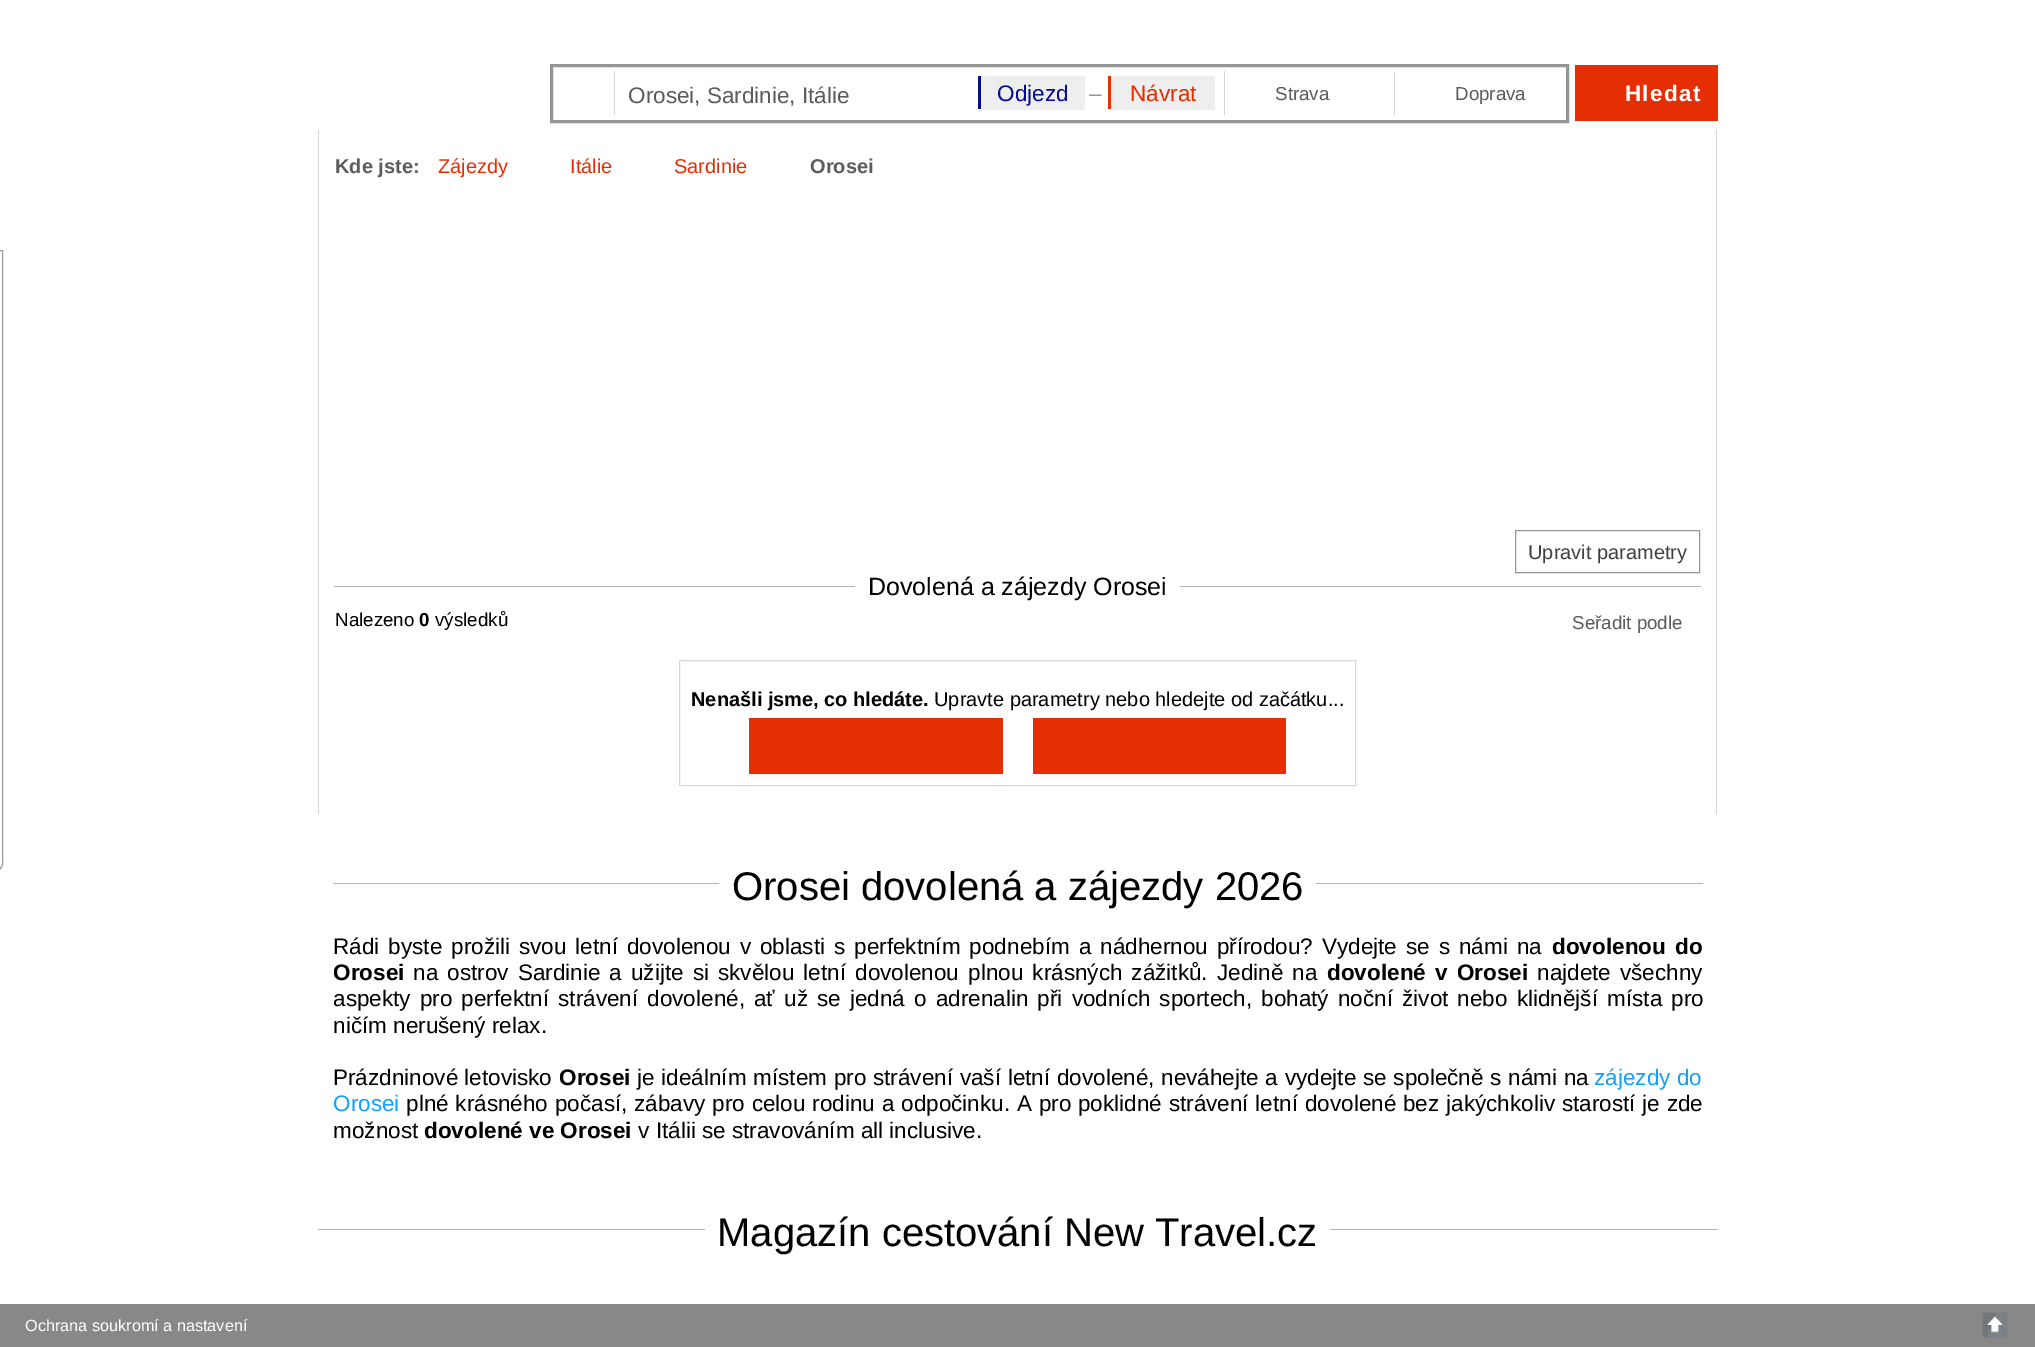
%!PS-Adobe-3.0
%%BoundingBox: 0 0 2035 1347
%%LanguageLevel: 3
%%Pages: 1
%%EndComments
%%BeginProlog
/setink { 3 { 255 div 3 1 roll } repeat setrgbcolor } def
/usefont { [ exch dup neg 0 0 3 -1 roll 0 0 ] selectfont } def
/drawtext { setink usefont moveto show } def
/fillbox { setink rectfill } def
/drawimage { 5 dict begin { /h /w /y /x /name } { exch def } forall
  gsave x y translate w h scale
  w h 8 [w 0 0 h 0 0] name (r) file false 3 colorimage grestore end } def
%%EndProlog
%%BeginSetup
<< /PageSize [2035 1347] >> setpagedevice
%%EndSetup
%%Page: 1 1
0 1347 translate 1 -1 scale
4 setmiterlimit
0 0 2035 1347 255 255 255 fillbox
153 153 153 setink
-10.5 250.5 moveto 2.5 250.5 lineto 2.5 863 lineto 2.5 868 -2 872.5 -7 872.5 curveto -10.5 872.5 lineto closepath stroke
150 150 150 setink
3 setlinewidth
551.5 65.5 1016 56 rectstroke
614 71 1 44 214 214 214 fillbox
(Orosei, Sardinie, Itálie) 628 103 /LiberationSans-Regular 22.5 92 92 92 drawtext
978 76 3 33 5 14 143 fillbox
981 76 104 34 238 238 238 fillbox
(Odjezd) 997 101 /LiberationSans-Regular 22.5 5 14 143 drawtext
(–) 1089 101 /LiberationSans-Regular 22.5 150 150 150 drawtext
1108 76 3 33 233 48 2 fillbox
1111 76 104 34 238 238 238 fillbox
(Návrat) 1130 101 /LiberationSans-Regular 22.5 230 46 4 drawtext
1224 71 1 44 214 214 214 fillbox
(Strava) 1275 100 /LiberationSans-Regular 18.75 92 92 92 drawtext
1394 71 1 44 214 214 214 fillbox
(Doprava) 1455 100 /LiberationSans-Regular 18.75 92 92 92 drawtext
1575 65 143 56 230 46 4 fillbox
/LiberationSans-Bold 22.5 usefont
255 255 255 setink
1625 101 moveto 1.25 0 (Hledat) ashow
1716 130 1 684 214 214 214 fillbox
318 130 1 684 214 214 214 fillbox
(Kde jste:) 335 173 /LiberationSans-Bold 20 92 92 92 drawtext
(Zájezdy) 438 173 /LiberationSans-Regular 20 230 46 4 drawtext
(Itálie) 570 173 /LiberationSans-Regular 20 230 46 4 drawtext
(Sardinie) 674 173 /LiberationSans-Regular 20 230 46 4 drawtext
(Orosei) 810 173 /LiberationSans-Bold 20 92 92 92 drawtext
150 150 150 setink
1 setlinewidth
1515.5 530.5 184 42 rectstroke
(Upravit parametry) 1528 559 /LiberationSans-Regular 20 64 64 64 drawtext
334 586 1367 1 181 181 181 fillbox
855 586 325 1 255 255 255 fillbox
(Dovolená a zájezdy Orosei) 868 595 /LiberationSans-Regular 25 0 0 0 drawtext
(Nalezeno) 335 626 /LiberationSans-Regular 18.75 0 0 0 drawtext
(0) 419 626 /LiberationSans-Bold 18.75 0 0 0 drawtext
(výsledků) 435 626 /LiberationSans-Regular 18.75 0 0 0 drawtext
(Seřadit podle) 1572 629 /LiberationSans-Regular 18.75 92 92 92 drawtext
214 214 214 setink
679.5 660.5 676 125 rectstroke
(Nenašli jsme, co hledáte.) 691 706 /LiberationSans-Bold 20 0 0 0 drawtext
(Upravte parametry nebo hledejte od začátku...) 934 706 /LiberationSans-Regular 20 0 0 0 drawtext
749 718 254 56 230 46 4 fillbox
1033 718 253 56 230 46 4 fillbox
333 883 1370 1 181 181 181 fillbox
719 883 597 1 255 255 255 fillbox
(Orosei dovolená a zájezdy 2026) 732 900 /LiberationSans-Regular 40 0 0 0 drawtext
/LiberationSans-Regular 22.5 usefont
333 954 moveto 2.75 0 32 (Rádi byste prožili svou letní dovolenou v oblasti s perfektním podnebím a nádhernou přírodou? Vydejte se s námi na) widthshow
/LiberationSans-Bold 22.5 usefont
1552 954 moveto 2.9 0 32 (dovolenou do) widthshow
(Orosei) 333 980 /LiberationSans-Bold 22.5 0 0 0 drawtext
/LiberationSans-Regular 22.5 usefont
413 980 moveto 2.9 0 32 (na ostrov Sardinie a užijte si skvělou letní dovolenou plnou krásných zážitků. Jedině na) widthshow
/LiberationSans-Bold 22.5 usefont
1327 980 moveto 2.9 0 32 (dovolené v Orosei) widthshow
/LiberationSans-Regular 22.5 usefont
1537 980 moveto 2.9 0 32 (najdete všechny) widthshow
333 1006 moveto 2.9 0 32 (aspekty pro perfektní strávení dovolené, ať už se jedná o adrenalin při vodních sportech, bohatý noční život nebo klidnější místa pro) widthshow
(ničím nerušený relax.) 333 1033 /LiberationSans-Regular 22.5 0 0 0 drawtext
(Prázdninové letovisko) 333 1085 /LiberationSans-Regular 22.5 0 0 0 drawtext
(Orosei) 559 1085 /LiberationSans-Bold 22.5 0 0 0 drawtext
/LiberationSans-Regular 22.5 usefont
637 1085 moveto 0.5 0 32 (je ideálním místem pro strávení vaší letní dovolené, neváhejte a vydejte se společně s námi na) widthshow
(zájezdy do) 1594 1085 /LiberationSans-Regular 22.5 18 162 251 drawtext
(Orosei) 333 1111 /LiberationSans-Regular 22.5 18 162 251 drawtext
0 0 0 setink
406 1111 moveto 0.6 0 32 (plné krásného počasí, zábavy pro celou rodinu a odpočinku. A pro poklidné strávení letní dovolené bez jakýchkoliv starostí je zde) widthshow
(možnost) 333 1138 /LiberationSans-Regular 22.5 0 0 0 drawtext
(dovolené ve Orosei) 424 1138 /LiberationSans-Bold 22.5 0 0 0 drawtext
(v Itálii se stravováním all inclusive.) 638 1138 /LiberationSans-Regular 22.5 0 0 0 drawtext
318 1229 1400 1 181 181 181 fillbox
705 1229 625 1 255 255 255 fillbox
(Magazín cestování New Travel.cz) 717 1246 /LiberationSans-Regular 40 0 0 0 drawtext
0 1304 2035 43 137 136 136 fillbox
(Ochrana soukromí a nastavení) 25 1331 /LiberationSans-Regular 16.25 255 255 255 drawtext
(assets/img1.rgb) 1982 1312 26 26 drawimage
showpage
%%EOF
